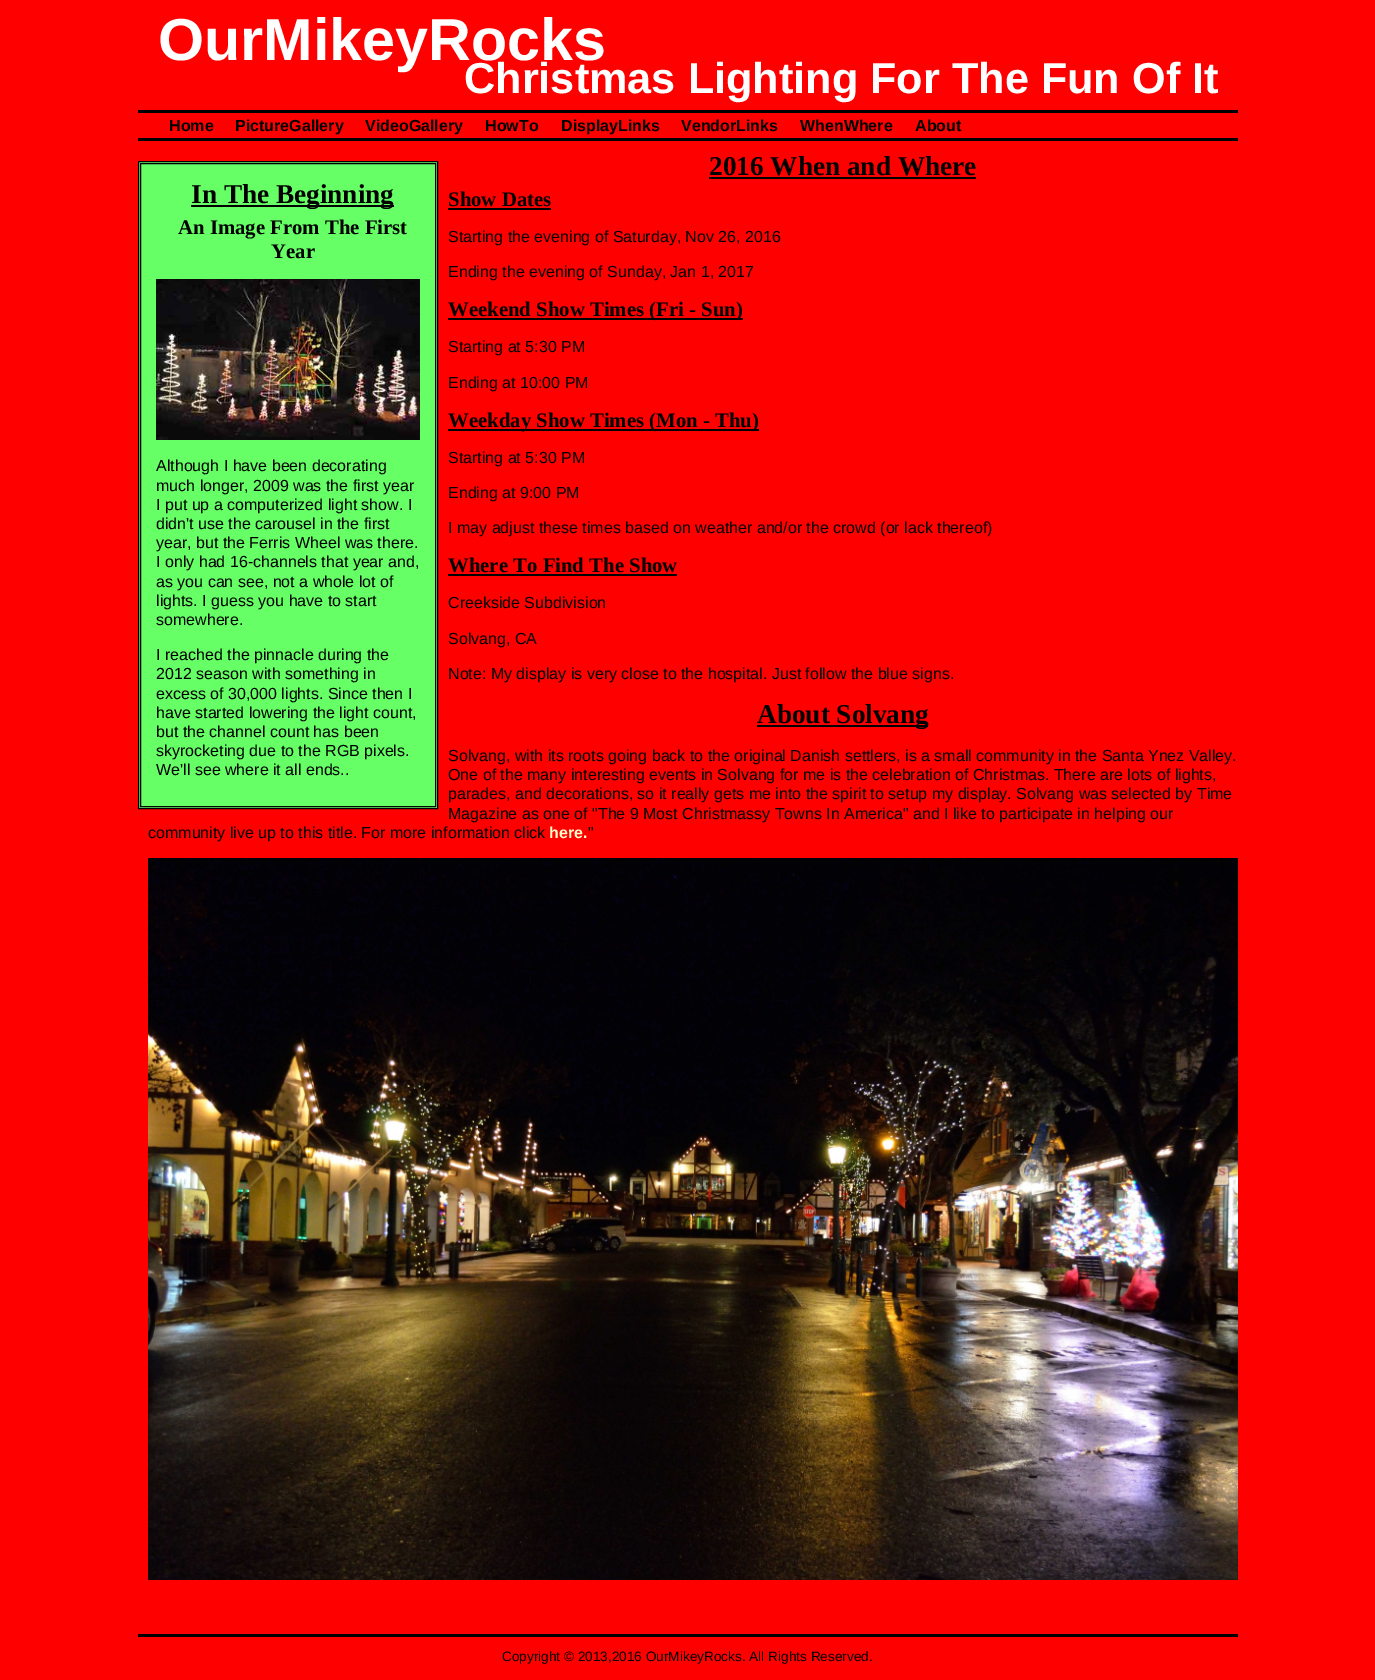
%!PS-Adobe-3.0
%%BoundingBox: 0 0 1375 1680
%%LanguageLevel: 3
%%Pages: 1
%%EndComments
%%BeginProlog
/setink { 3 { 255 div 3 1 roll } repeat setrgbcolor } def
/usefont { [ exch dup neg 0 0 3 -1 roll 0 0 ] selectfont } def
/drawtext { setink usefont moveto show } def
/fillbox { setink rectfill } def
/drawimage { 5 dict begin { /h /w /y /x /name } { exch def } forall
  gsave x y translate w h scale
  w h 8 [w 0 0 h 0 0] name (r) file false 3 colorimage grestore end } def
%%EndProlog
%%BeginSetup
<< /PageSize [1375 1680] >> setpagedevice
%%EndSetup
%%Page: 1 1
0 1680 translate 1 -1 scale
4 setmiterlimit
0 0 1375 1680 255 0 0 fillbox
138 110 1100 3 0 0 0 fillbox
(OurMikeyRocks) 158 60 /LiberationSans-Bold 59.25 255 255 255 drawtext
(Christmas Lighting For The Fun Of It) 464 93 /LiberationSans-Bold 43.25 255 255 255 drawtext
138 138 1100 3 0 0 0 fillbox
(Home) 169 131 /LiberationSans-Bold 16 0 0 0 drawtext
(PictureGallery) 235 131 /LiberationSans-Bold 16 0 0 0 drawtext
(VideoGallery) 365 131 /LiberationSans-Bold 16 0 0 0 drawtext
(HowTo) 485 131 /LiberationSans-Bold 16 0 0 0 drawtext
(DisplayLinks) 561 131 /LiberationSans-Bold 16 0 0 0 drawtext
(VendorLinks) 681 131 /LiberationSans-Bold 16 0 0 0 drawtext
(WhenWhere) 800 131 /LiberationSans-Bold 16 0 0 0 drawtext
(About) 915 131 /LiberationSans-Bold 16 0 0 0 drawtext
(2016 When and Where) 709 175 /LiberationSerif-Bold 27.25 0 0 0 drawtext
709 177 267 2 0 0 0 fillbox
(Show Dates) 448 206 /LiberationSerif-Bold 20.75 0 0 0 drawtext
448 208 103 2 0 0 0 fillbox
(Starting the evening of Saturday, Nov 26, 2016) 448 242 /LiberationSans-Regular 16 0 0 0 drawtext
(Ending the evening of Sunday, Jan 1, 2017) 448 277 /LiberationSans-Regular 16 0 0 0 drawtext
448 318 295 2 0 0 0 fillbox
(Weekend Show Times \(Fri - Sun\)) 448 316 /LiberationSerif-Bold 20.75 0 0 0 drawtext
(Starting at 5:30 PM) 448 352 /LiberationSans-Regular 16 0 0 0 drawtext
(Ending at 10:00 PM) 448 388 /LiberationSans-Regular 16 0 0 0 drawtext
448 429 311 2 0 0 0 fillbox
(Weekday Show Times \(Mon - Thu\)) 448 427 /LiberationSerif-Bold 20.75 0 0 0 drawtext
(Starting at 5:30 PM) 448 463 /LiberationSans-Regular 16 0 0 0 drawtext
(Ending at 9:00 PM) 448 498 /LiberationSans-Regular 16 0 0 0 drawtext
(I may adjust these times based on weather and/or the crowd \(or lack thereof\)) 448 533 /LiberationSans-Regular 16 0 0 0 drawtext
(Where To Find The Show) 448 572 /LiberationSerif-Bold 20.75 0 0 0 drawtext
448 574 229 2 0 0 0 fillbox
(Creekside Subdivision) 448 608 /LiberationSans-Regular 16 0 0 0 drawtext
(Solvang, CA) 448 644 /LiberationSans-Regular 16 0 0 0 drawtext
(Note: My display is very close to the hospital. Just follow the blue signs.) 448 679 /LiberationSans-Regular 16 0 0 0 drawtext
757 725 171 2 0 0 0 fillbox
(About Solvang) 757 723 /LiberationSerif-Bold 27.25 0 0 0 drawtext
(Solvang, with its roots going back to the original Danish settlers, is a small community in the Santa Ynez Valley.) 448 761 /LiberationSans-Regular 16 0 0 0 drawtext
(One of the many interesting events in Solvang for me is the celebration of Christmas. There are lots of lights,) 448 780 /LiberationSans-Regular 16 0 0 0 drawtext
(parades, and decorations, so it really gets me into the spirit to setup my display. Solvang was selected by Time) 448 799 /LiberationSans-Regular 16 0 0 0 drawtext
(Magazine as one of "The 9 Most Christmassy Towns In America" and I like to participate in helping our) 448 819 /LiberationSans-Regular 16 0 0 0 drawtext
(community live up to this title. For more information click) 148 838 /LiberationSans-Regular 16 0 0 0 drawtext
(here.) 549 838 /LiberationSans-Bold 16 255 255 204 drawtext
(") 588 838 /LiberationSans-Regular 16 0 0 0 drawtext
(assets/img1.rgb) 148 858 1090 722 drawimage
102 255 102 setink
138.5 161.5 moveto 437.5 161.5 lineto 437.5 808.5 lineto 138.5 808.5 lineto closepath gsave fill grestore
0 0 0 setink
stroke
140.5 163.5 295 643 rectstroke
191 205 203 2 0 0 0 fillbox
(In The Beginning) 191 203 /LiberationSerif-Bold 27.25 0 0 0 drawtext
(An Image From The First) 178 234 /LiberationSerif-Bold 20.75 0 0 0 drawtext
(Year) 271 258 /LiberationSerif-Bold 20.75 0 0 0 drawtext
(assets/img2.rgb) 156 279 264 161 drawimage
(Although I have been decorating) 156 471 /LiberationSans-Regular 16 0 0 0 drawtext
(much longer, 2009 was the first year) 156 491 /LiberationSans-Regular 16 0 0 0 drawtext
(I put up a computerized light show. I) 156 510 /LiberationSans-Regular 16 0 0 0 drawtext
(didn't use the carousel in the first) 156 529 /LiberationSans-Regular 16 0 0 0 drawtext
(year, but the Ferris Wheel was there.) 156 548 /LiberationSans-Regular 16 0 0 0 drawtext
(I only had 16-channels that year and,) 156 567 /LiberationSans-Regular 16 0 0 0 drawtext
(as you can see, not a whole lot of) 156 587 /LiberationSans-Regular 16 0 0 0 drawtext
(lights. I guess you have to start) 156 606 /LiberationSans-Regular 16 0 0 0 drawtext
(somewhere.) 156 625 /LiberationSans-Regular 16 0 0 0 drawtext
(I reached the pinnacle during the) 156 660 /LiberationSans-Regular 16 0 0 0 drawtext
(2012 season with something in) 156 679 /LiberationSans-Regular 16 0 0 0 drawtext
(excess of 30,000 lights. Since then I) 156 699 /LiberationSans-Regular 16 0 0 0 drawtext
(have started lowering the light count,) 156 718 /LiberationSans-Regular 16 0 0 0 drawtext
(but the channel count has been) 156 737 /LiberationSans-Regular 16 0 0 0 drawtext
(skyrocketing due to the RGB pixels.) 156 756 /LiberationSans-Regular 16 0 0 0 drawtext
(We'll see where it all ends..) 156 775 /LiberationSans-Regular 16 0 0 0 drawtext
138 1634 1100 3 0 0 0 fillbox
(Copyright © 2013,2016 OurMikeyRocks. All Rights Reserved.) 502 1661 /LiberationSans-Regular 13.6 0 0 0 drawtext
showpage
%%EOF
